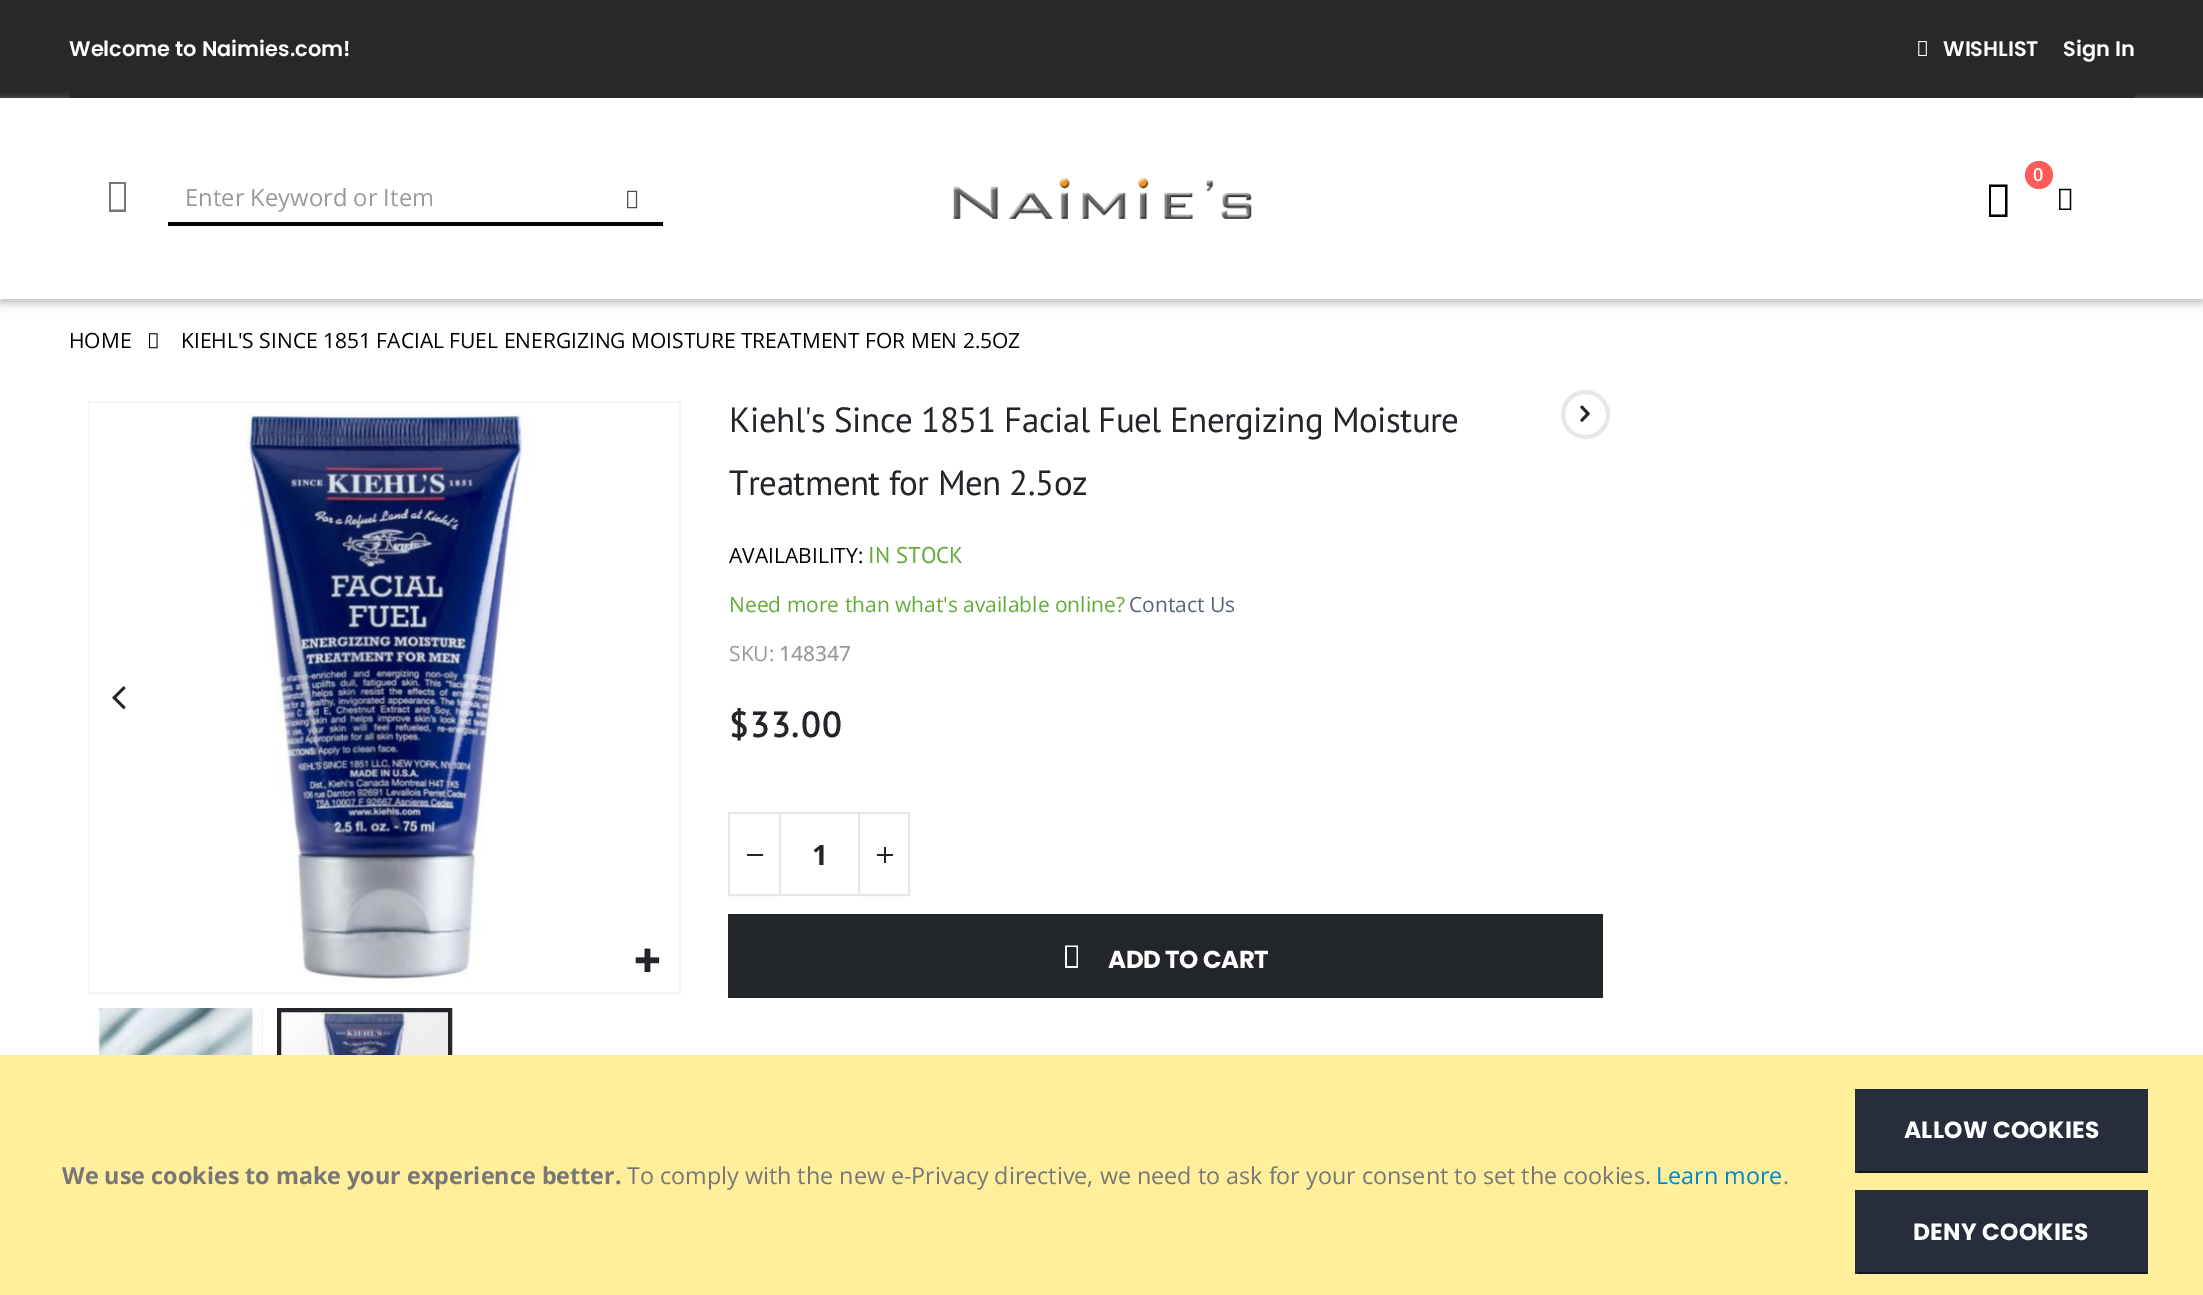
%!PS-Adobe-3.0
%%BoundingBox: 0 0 2203 1295
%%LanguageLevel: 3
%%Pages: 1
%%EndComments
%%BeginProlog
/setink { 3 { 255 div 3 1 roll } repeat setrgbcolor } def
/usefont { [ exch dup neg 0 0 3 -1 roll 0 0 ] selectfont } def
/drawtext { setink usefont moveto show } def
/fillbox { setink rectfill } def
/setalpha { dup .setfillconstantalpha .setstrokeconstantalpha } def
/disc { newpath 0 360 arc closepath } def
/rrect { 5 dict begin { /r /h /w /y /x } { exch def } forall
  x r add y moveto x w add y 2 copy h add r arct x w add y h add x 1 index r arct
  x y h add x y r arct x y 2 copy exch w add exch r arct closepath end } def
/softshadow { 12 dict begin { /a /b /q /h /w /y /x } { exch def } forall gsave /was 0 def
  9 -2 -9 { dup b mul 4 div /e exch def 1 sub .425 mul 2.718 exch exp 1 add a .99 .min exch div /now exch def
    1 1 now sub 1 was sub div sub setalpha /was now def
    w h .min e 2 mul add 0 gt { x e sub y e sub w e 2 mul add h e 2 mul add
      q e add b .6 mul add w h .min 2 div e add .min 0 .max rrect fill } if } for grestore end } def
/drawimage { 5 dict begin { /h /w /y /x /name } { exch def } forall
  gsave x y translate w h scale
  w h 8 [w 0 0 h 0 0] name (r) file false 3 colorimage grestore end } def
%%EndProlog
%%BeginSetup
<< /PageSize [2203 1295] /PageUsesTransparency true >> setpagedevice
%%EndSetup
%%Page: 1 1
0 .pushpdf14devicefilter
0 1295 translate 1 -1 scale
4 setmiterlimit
0 0 2203 1295 255 255 255 fillbox
0 0 2203 98 40 40 40 fillbox
gsave
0 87 moveto 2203 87 lineto 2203 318 lineto 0 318 lineto closepath 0 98 moveto 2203 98 lineto 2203 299 lineto 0 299 lineto closepath eoclip newpath
189 189 189 setink
0 102 2203 201 0 4.5 1 softshadow
grestore
70 93 2065 5 40 40 40 fillbox
(Welcome to Naimies.com!) 69 56 /Poppins-SemiBold 21 255 255 255 drawtext
(assets/img1.rgb) 1918 41 9 15 drawimage
(WISHLIST) 1943 56 /Poppins-SemiBold 21 255 255 255 drawtext
(Sign In) 2063 56 /Poppins-SemiBold 21 255 255 255 drawtext
255 91 91 setink
2039 175 14 disc fill
(0) 2033 181 /OpenSans-SemiBold 18 255 255 255 drawtext
0 0 0 setink
1989 217 moveto 1989 184.5 lineto 2007.5 184.5 lineto 2007.5 217 lineto closepath 1991 214.5 moveto 2005 214.5 lineto 2005 187 lineto 1991 187 lineto closepath fill
(assets/img2.rgb) 2059 188 13 22 drawimage
119 119 119 setink
109 212 moveto 109 182 lineto 126 182 lineto 126 212 lineto closepath 111 209.5 moveto 124 209.5 lineto 124 184 lineto 111 184 lineto closepath fill
168 222 495 4 0 0 0 fillbox
(Enter Keyword or Item) 185 206 /OpenSans-Regular 23.75 153 153 153 drawtext
(assets/img3.rgb) 627 190 11 19 drawimage
(assets/img4.rgb) 953 178 299 41 drawimage
(HOME) 69 348 /OpenSans-Regular 21 0 0 0 drawtext
(assets/img5.rgb) 148 333 10 16 drawimage
(KIEHL'S SINCE 1851 FACIAL FUEL ENERGIZING MOISTURE TREATMENT FOR MEN 2.5OZ) 181 348 /OpenSans-Regular 21 0 0 0 drawtext
244 244 244 setink
2 setlinewidth
89 402 591 591 rectstroke
(assets/img6.rgb) 89 403 442 588 drawimage
(assets/img7.rgb) 112 686 14 24 drawimage
(assets/img8.rgb) 635 948 25 25 drawimage
261 1008 2 47 235 235 235 fillbox
(assets/img9.rgb) 88 1008 175 47 drawimage
(assets/img10.rgb) 281 1012 167 43 drawimage
34 37 41 setink
4 setlinewidth
279 1010 171 171 rectstroke
/PTSans-Regular 35 usefont
729 432 moveto -0.53 0 (Kiehl's Since 1851 Facial Fuel Energizing Moisture) ashow
729 495 moveto -0.53 0 (Treatment for Men 2.5oz) ashow
231 231 231 setink
1585.5 414.5 22.5 disc stroke
(assets/img11.rgb) 1580 405 10 17 drawimage
(AVAILABILITY:) 729 563 /OpenSans-Regular 21 0 0 0 drawtext
(IN STOCK) 868 563 /PTSans-Regular 22.75 98 171 55 drawtext
(Need more than what's available online?) 729 612 /OpenSans-Regular 21 98 171 55 drawtext
(Contact Us) 1129 612 /OpenSans-Regular 21 86 102 122 drawtext
(SKU:) 729 661 /OpenSans-Regular 21 153 153 153 drawtext
(148347) 779 661 /OpenSans-Medium 21 153 153 153 drawtext
/PTSans-Bold 35 usefont
34 37 41 setink
729 737 moveto 1.75 0 ($33.00) ashow
231 231 231 setink
2 setlinewidth
729 813 51 82 rectstroke
747 854 16 2 34 37 41 fillbox
231 231 231 setink
859 813 50 82 rectstroke
877 854 16 2 34 37 41 fillbox
884 847 2 16 34 37 41 fillbox
781 812 77 2 231 231 231 fillbox
781 894 77 2 231 231 231 fillbox
(1) 812 865 /OpenSans-Bold 28 34 37 41 drawtext
728 914 875 84 34 37 41 fillbox
255 255 255 setink
1065 968 moveto 1065 945.5 lineto 1078 945.5 lineto 1078 968 lineto closepath 1067 966 moveto 1076.5 966 lineto 1076.5 947 lineto 1067 947 lineto closepath fill
/Poppins-Bold 24.5 usefont
1108 968 moveto -0.4 0 (ADD TO CART) ashow
0 1055 2203 240 255 238 156 fillbox
(We use cookies to make your experience better.) 62 1184 /OpenSans-Bold 23.35 119 119 119 drawtext
(To comply with the new e-Privacy directive, we need to ask for your consent to set the cookies.) 627 1184 /OpenSans-Regular 23.35 119 119 119 drawtext
(Learn more) 1656 1184 /OpenSans-Regular 23.35 0 136 204 drawtext
(.) 1783 1184 /OpenSans-Regular 23.35 119 119 119 drawtext
1857 1089 289 82 40 45 59 fillbox
2146 1089 2 84 40 45 59 fillbox
1855 1171 292 2 20 22 29 fillbox
1855 1089 2 84 40 45 59 fillbox
/Poppins-Bold 23.35 usefont
255 255 255 setink
1904 1138 moveto 0.25 0 (ALLOW COOKIES) ashow
1857 1190 289 82 40 45 59 fillbox
2146 1190 2 84 40 45 59 fillbox
1855 1272 292 2 20 22 29 fillbox
1855 1190 2 84 40 45 59 fillbox
255 255 255 setink
1913 1240 moveto 0.25 0 (DENY COOKIES) ashow
.poppdf14devicefilter showpage
%%EOF
